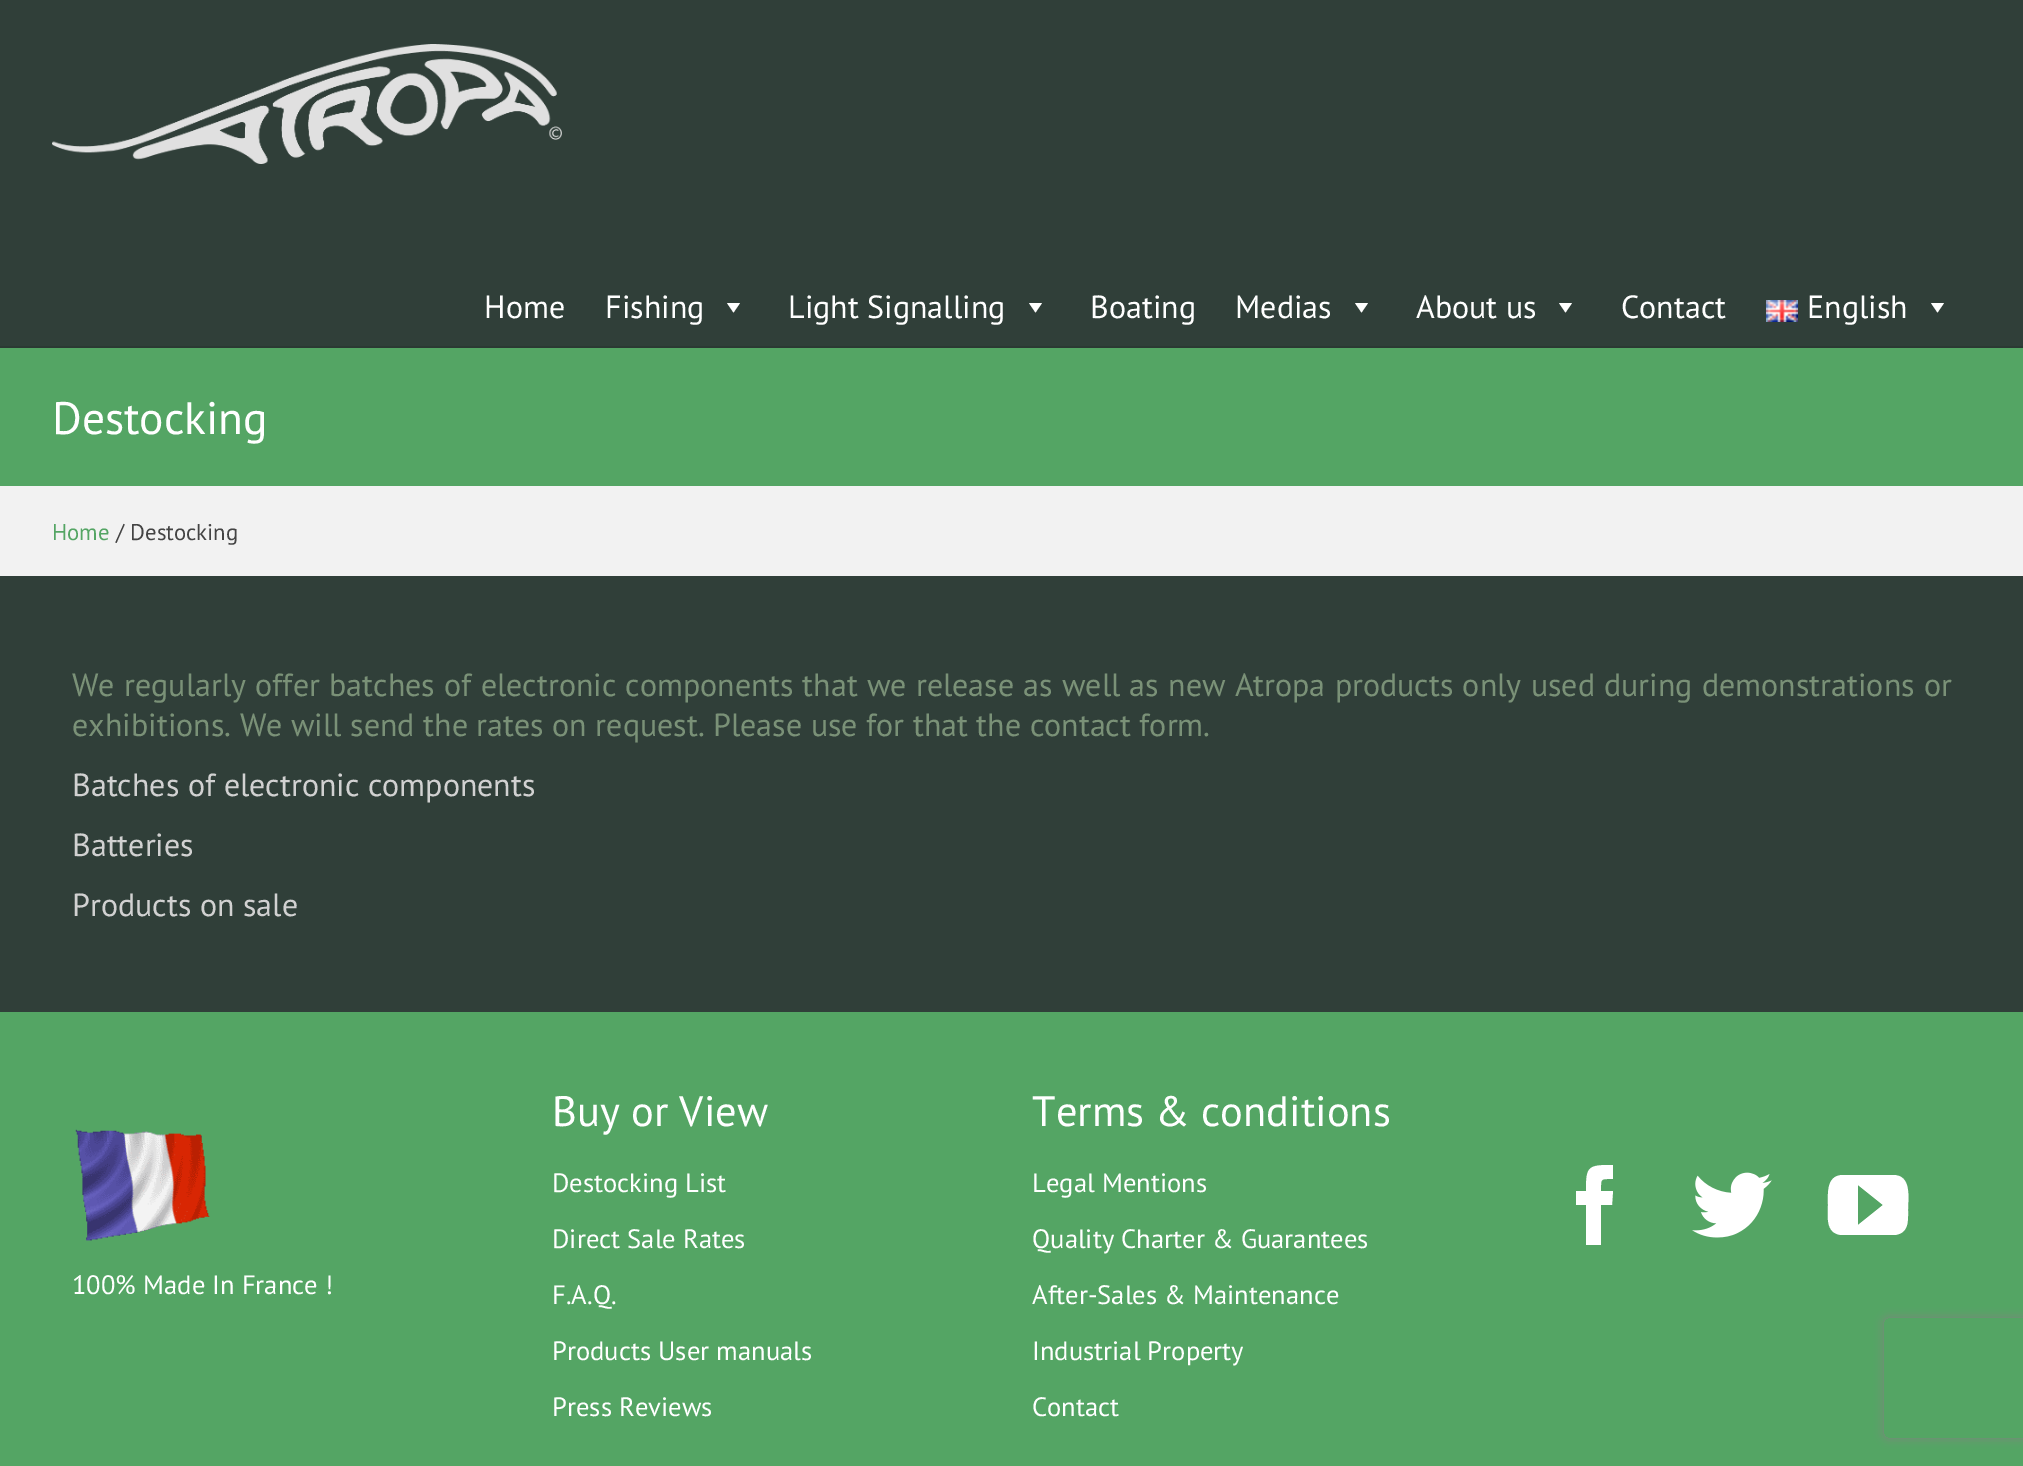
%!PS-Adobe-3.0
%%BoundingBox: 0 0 2023 1466
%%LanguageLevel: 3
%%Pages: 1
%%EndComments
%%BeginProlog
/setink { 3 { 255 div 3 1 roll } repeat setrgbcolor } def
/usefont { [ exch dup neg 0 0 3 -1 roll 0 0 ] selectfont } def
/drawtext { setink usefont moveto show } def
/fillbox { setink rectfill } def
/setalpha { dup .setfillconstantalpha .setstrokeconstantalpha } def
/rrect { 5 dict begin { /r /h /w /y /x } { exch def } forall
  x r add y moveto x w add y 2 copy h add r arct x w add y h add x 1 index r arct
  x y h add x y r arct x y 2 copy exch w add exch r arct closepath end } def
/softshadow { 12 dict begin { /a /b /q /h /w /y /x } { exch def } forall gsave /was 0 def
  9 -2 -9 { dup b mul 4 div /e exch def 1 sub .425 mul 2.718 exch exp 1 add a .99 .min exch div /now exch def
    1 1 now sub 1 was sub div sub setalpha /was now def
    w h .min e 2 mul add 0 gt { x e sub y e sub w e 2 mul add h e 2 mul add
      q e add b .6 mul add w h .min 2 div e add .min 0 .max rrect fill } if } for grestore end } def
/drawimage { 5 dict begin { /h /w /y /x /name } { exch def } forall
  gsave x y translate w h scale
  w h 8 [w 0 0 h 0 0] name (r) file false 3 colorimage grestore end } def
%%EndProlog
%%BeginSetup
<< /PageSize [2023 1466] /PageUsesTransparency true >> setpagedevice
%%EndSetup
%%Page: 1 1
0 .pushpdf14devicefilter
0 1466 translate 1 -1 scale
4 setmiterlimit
0 0 2023 1466 48 63 57 fillbox
0 346 2023 2 43 57 51 fillbox
(assets/img1.rgb) 52 44 510 120 drawimage
(Home) 484 318 /PTSans-Regular 32 255 255 255 drawtext
(Fishing) 605 318 /PTSans-Regular 32 255 255 255 drawtext
740 303 moveto 733.5 312.5 lineto 727 303 lineto closepath fill
(Light Signalling) 788 318 /PTSans-Regular 32 255 255 255 drawtext
1042 303 moveto 1035.5 312.5 lineto 1029 303 lineto closepath fill
(Boating) 1090 318 /PTSans-Regular 32 255 255 255 drawtext
(Medias) 1235 318 /PTSans-Regular 32 255 255 255 drawtext
1368 303 moveto 1361.5 312.5 lineto 1355 303 lineto closepath fill
(About us) 1416 318 /PTSans-Regular 32 255 255 255 drawtext
1572 303 moveto 1565.5 312.5 lineto 1559 303 lineto closepath fill
(Contact) 1621 318 /PTSans-Regular 32 255 255 255 drawtext
(assets/img2.rgb) 1766 300 32 22 drawimage
(English) 1807 318 /PTSans-Regular 32 255 255 255 drawtext
1944 303 moveto 1937.5 312.5 lineto 1931 303 lineto closepath fill
0 348 2023 138 84 165 100 fillbox
(Destocking) 52 434 /PTSans-Regular 45.5 255 255 255 drawtext
0 486 2023 90 242 242 242 fillbox
(Home) 52 540 /PTSans-Regular 22.75 84 165 100 drawtext
(/ Destocking) 116 540 /PTSans-Regular 22.75 68 68 68 drawtext
/PTSans-Regular 32 usefont
122 145 119 setink
72 696 moveto 0.7 0 32 (We regularly offer batches of electronic components that we release as well as new Atropa products only used during demonstrations or) widthshow
(exhibitions. We will send the rates on request. Please use for that the contact form.) 72 736 /PTSans-Regular 32 122 145 119 drawtext
(Batches of electronic components) 72 796 /PTSans-Regular 32 209 209 209 drawtext
(Batteries) 72 856 /PTSans-Regular 32 209 209 209 drawtext
(Products on sale) 72 916 /PTSans-Regular 32 209 209 209 drawtext
0 1012 2023 454 84 165 100 fillbox
(Buy or View) 552 1126 /PTSans-Regular 42.5 255 255 255 drawtext
(Destocking List) 552 1192 /PTSans-Regular 26.6 255 255 255 drawtext
(Direct Sale Rates) 552 1248 /PTSans-Regular 26.6 255 255 255 drawtext
(F.A.Q.) 552 1304 /PTSans-Regular 26.6 255 255 255 drawtext
(Products User manuals) 552 1360 /PTSans-Regular 26.6 255 255 255 drawtext
(Press Reviews) 552 1416 /PTSans-Regular 26.6 255 255 255 drawtext
(Terms & conditions) 1032 1126 /PTSans-Regular 42.5 255 255 255 drawtext
(Legal Mentions) 1032 1192 /PTSans-Regular 26.6 255 255 255 drawtext
(Quality Charter & Guarantees) 1032 1248 /PTSans-Regular 26.6 255 255 255 drawtext
(After-Sales & Maintenance) 1032 1304 /PTSans-Regular 26.6 255 255 255 drawtext
(Industrial Property) 1032 1360 /PTSans-Regular 26.6 255 255 255 drawtext
(Contact) 1032 1416 /PTSans-Regular 26.6 255 255 255 drawtext
1601 1245 moveto 1586 1245 lineto 1586 1205 lineto 1576 1205 lineto 1576 1191 lineto 1586 1191 lineto 1586 1166 1588 1165 1613 1165 curveto 1613 1179 lineto 1600 1179 1601 1178 1601 1191 curveto 1613 1191 lineto 1612 1205 lineto 1601 1205 lineto closepath fill
(assets/img3.rgb) 1692 1172 80 66 drawimage
1893 1175 moveto 1842 1175 lineto 1826 1176 1828 1194 1828 1205 curveto 1828 1216 1825 1233 1841 1235 curveto 1895 1235 lineto 1909 1233 1908 1221 1908 1210 curveto 1908 1198 1912 1175 1893 1175 curveto closepath 1858 1225 moveto 1858 1185 lineto 1883 1205 lineto closepath fill
(assets/img4.rgb) 75 1129 135 112 drawimage
(100% Made In France !) 72 1294 /PTSans-Regular 26.6 255 255 255 drawtext
gsave
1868 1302 moveto 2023 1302 lineto 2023 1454 lineto 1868 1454 lineto closepath 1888 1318 moveto 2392 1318 lineto 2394 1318 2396 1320 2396 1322 curveto 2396 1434 lineto 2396 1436 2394 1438 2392 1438 curveto 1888 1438 lineto 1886 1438 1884 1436 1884 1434 curveto 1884 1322 lineto 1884 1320 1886 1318 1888 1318 curveto closepath eoclip newpath
128 128 128 setink
1884 1318 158 120 4 5 1 softshadow
grestore
.poppdf14devicefilter showpage
%%EOF
